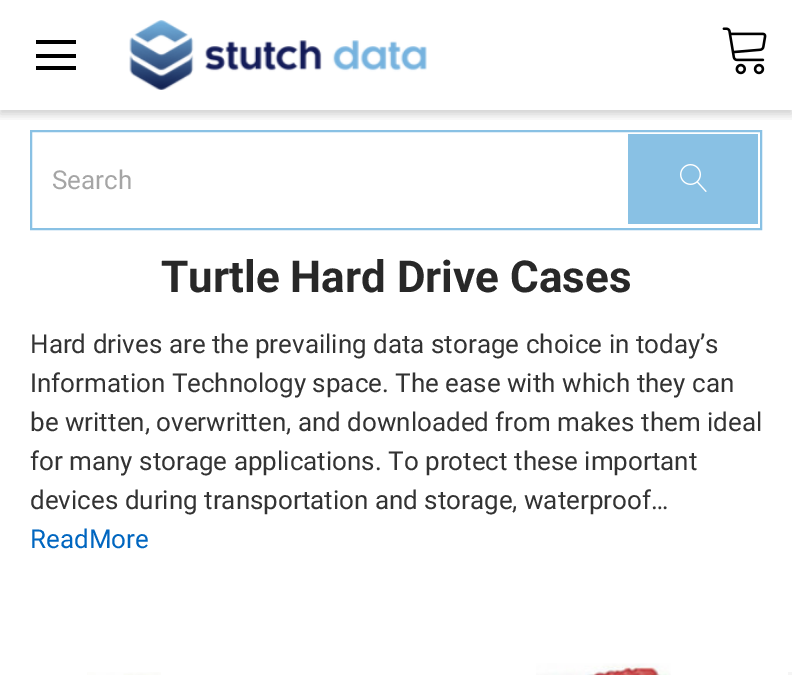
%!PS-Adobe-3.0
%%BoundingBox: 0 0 792 675
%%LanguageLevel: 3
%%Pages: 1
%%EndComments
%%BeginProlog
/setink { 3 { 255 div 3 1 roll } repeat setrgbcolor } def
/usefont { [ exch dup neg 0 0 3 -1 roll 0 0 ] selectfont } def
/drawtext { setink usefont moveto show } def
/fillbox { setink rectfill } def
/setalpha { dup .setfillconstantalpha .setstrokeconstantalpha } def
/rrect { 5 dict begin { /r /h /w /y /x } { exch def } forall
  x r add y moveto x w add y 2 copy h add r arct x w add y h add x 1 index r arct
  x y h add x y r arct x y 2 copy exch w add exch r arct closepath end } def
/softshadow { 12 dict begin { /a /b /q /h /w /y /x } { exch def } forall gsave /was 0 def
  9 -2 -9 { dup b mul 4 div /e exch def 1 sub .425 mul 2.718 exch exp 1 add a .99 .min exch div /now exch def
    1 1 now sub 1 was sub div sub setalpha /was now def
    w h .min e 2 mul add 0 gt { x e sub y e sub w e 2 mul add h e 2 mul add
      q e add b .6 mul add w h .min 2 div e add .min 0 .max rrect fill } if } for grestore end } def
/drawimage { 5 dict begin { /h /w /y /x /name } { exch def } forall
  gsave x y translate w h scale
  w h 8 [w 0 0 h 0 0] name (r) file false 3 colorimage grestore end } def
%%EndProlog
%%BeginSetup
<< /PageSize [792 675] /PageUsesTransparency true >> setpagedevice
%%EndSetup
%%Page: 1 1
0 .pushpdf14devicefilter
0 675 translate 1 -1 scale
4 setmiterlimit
0 0 792 675 255 255 255 fillbox
gsave
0 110 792 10 rectclip
0 0 0 setink
0 4 792 110 0 5 0.2 softshadow
grestore
36 54 40 4 0 0 0 fillbox
36 40 40 4 0 0 0 fillbox
36 66 40 4 0 0 0 fillbox
(assets/img1.rgb) 129 20 298 70 drawimage
(assets/img2.rgb) 722 27 45 48 drawimage
137 193 228 setink
2 setlinewidth
31 131 730 98 rectstroke
(Search) 52 189 /Roboto-Regular 26 165 165 165 drawtext
628 134 130 90 137 193 228 fillbox
(assets/img3.rgb) 680 164 27 28 drawimage
(Turtle Hard Drive Cases) 161 292 /Roboto-Bold 44 40 40 40 drawtext
(Hard drives are the prevailing data storage choice in today’s) 30 353 /Roboto-Regular 26 51 51 51 drawtext
(Information Technology space. The ease with which they can) 30 392 /Roboto-Regular 26 51 51 51 drawtext
(be written, overwritten, and downloaded from makes them ideal) 30 431 /Roboto-Regular 26 51 51 51 drawtext
(for many storage applications. To protect these important) 30 470 /Roboto-Regular 26 51 51 51 drawtext
(devices during transportation and storage, waterproof…) 30 509 /Roboto-Regular 26 51 51 51 drawtext
(ReadMore) 30 548 /Roboto-Regular 26 0 102 192 drawtext
(assets/img4.rgb) 87 672 74 3 drawimage
(assets/img5.rgb) 536 663 135 12 drawimage
788 672 4 3 245 245 245 fillbox
.poppdf14devicefilter showpage
%%EOF
